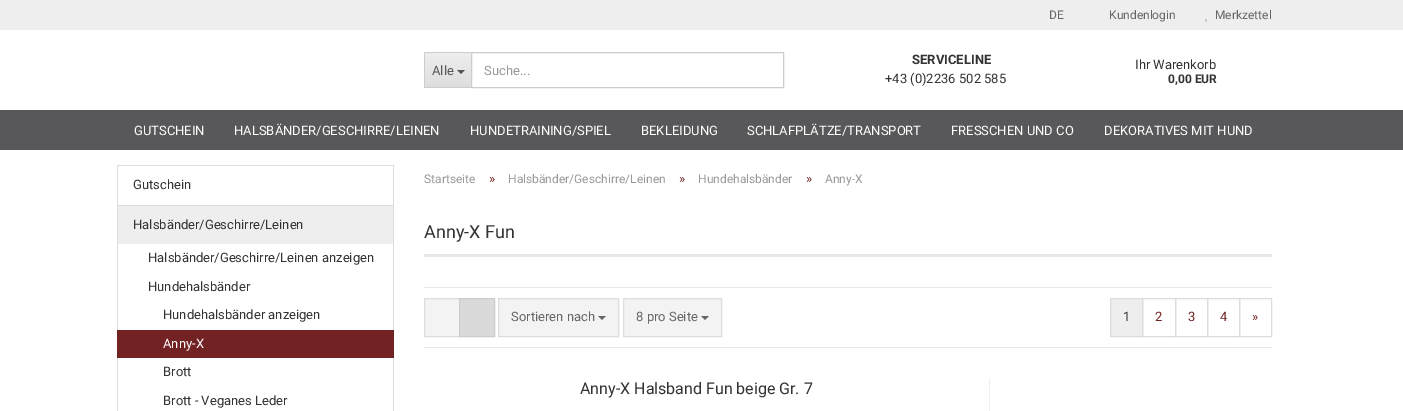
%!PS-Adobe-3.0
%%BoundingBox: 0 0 1403 411
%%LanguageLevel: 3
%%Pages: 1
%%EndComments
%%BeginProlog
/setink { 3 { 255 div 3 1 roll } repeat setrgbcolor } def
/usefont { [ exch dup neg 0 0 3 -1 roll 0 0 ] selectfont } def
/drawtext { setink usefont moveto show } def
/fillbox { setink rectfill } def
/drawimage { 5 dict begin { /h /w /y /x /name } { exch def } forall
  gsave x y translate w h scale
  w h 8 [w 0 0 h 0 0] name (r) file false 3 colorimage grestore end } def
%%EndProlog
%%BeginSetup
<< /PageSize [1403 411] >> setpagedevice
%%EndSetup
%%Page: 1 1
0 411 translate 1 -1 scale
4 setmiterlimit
0 0 1403 411 255 255 255 fillbox
0 0 1403 30 238 238 238 fillbox
(DE) 1049 19 /Roboto-Regular 12 102 102 102 drawtext
(Kundenlogin) 1109 19 /Roboto-Regular 12 102 102 102 drawtext
(Merkzettel) 1215 19 /Roboto-Regular 12 102 102 102 drawtext
(assets/img1.rgb) 1205 19 2 3 drawimage
gsave 425 53 moveto 471 53 lineto 471 87 lineto 425 87 lineto closepath clip newpath
<< /ShadingType 2 /ColorSpace /DeviceRGB /Coords [448 53 448 87] /Extend [true true] /Function << /FunctionType 2 /Domain [0 1] /C0 [0.933 0.933 0.933] /C1 [0.871 0.871 0.871] /N 1 >> >> shfill grestore
424 52 47 1 204 204 204 fillbox
424 87 47 1 204 204 204 fillbox
424 52 1 36 204 204 204 fillbox
(Alle) 432 75 /Roboto-Regular 13 85 85 85 drawtext
457 70 moveto 465 70 lineto 461 74 lineto closepath fill
204 204 204 setink
471.5 52.5 312 35 rectstroke
(Suche...) 484 75 /Roboto-Regular 13 153 153 153 drawtext
(SERVICELINE) 912 64 /Roboto-Bold 13 51 51 51 drawtext
(+43 \(0\)2236 502 585) 885 83 /Roboto-Regular 13 51 51 51 drawtext
(Ihr Warenkorb) 1135 69 /Roboto-Regular 13 51 51 51 drawtext
(0,00 EUR) 1168 83 /Roboto-Bold 12 51 51 51 drawtext
0 110 1403 40 88 88 90 fillbox
(GUTSCHEIN) 134 135 /Roboto-Regular 13 255 255 255 drawtext
(HALSBÄNDER/GESCHIRRE/LEINEN) 234 135 /Roboto-Regular 13 255 255 255 drawtext
(HUNDETRAINING/SPIEL) 470 135 /Roboto-Regular 13 255 255 255 drawtext
(BEKLEIDUNG) 641 135 /Roboto-Regular 13 255 255 255 drawtext
(SCHLAFPLÄTZE/TRANSPORT) 747 135 /Roboto-Regular 13 255 255 255 drawtext
(FRESSCHEN UND CO) 951 135 /Roboto-Regular 13 255 255 255 drawtext
(DEKORATIVES MIT HUND) 1104 135 /Roboto-Regular 13 255 255 255 drawtext
117 165 277 1 221 221 221 fillbox
393 165 1 246 221 221 221 fillbox
117 165 1 246 221 221 221 fillbox
118 205 275 1 221 221 221 fillbox
(Gutschein) 133 189 /Roboto-Regular 13 51 51 51 drawtext
118 206 275 38 238 238 238 fillbox
(Halsbänder/Geschirre/Leinen) 133 229 /Roboto-Regular 13 51 51 51 drawtext
(Halsbänder/Geschirre/Leinen anzeigen) 148 262 /Roboto-Regular 13 51 51 51 drawtext
(Hundehalsbänder) 148 291 /Roboto-Regular 13 51 51 51 drawtext
(Hundehalsbänder anzeigen) 163 319 /Roboto-Regular 13 51 51 51 drawtext
117 330 277 28 114 34 35 fillbox
(Anny-X) 163 348 /Roboto-Regular 13 255 255 255 drawtext
(Brott) 163 376 /Roboto-Regular 13 51 51 51 drawtext
(Brott - Veganes Leder) 163 405 /Roboto-Regular 13 51 51 51 drawtext
(Startseite) 424 183 /Roboto-Regular 12 153 153 153 drawtext
(») 489 183 /Roboto-Regular 13 114 34 35 drawtext
(Halsbänder/Geschirre/Leinen) 508 183 /Roboto-Regular 12 153 153 153 drawtext
(») 679 183 /Roboto-Regular 13 114 34 35 drawtext
(Hundehalsbänder) 698 183 /Roboto-Regular 12 153 153 153 drawtext
(») 806 183 /Roboto-Regular 13 114 34 35 drawtext
(Anny-X) 825 183 /Roboto-Regular 12 153 153 153 drawtext
424 254 848 3 231 231 231 fillbox
(Anny-X Fun) 424 238 /Roboto-Regular 18 51 51 51 drawtext
424 287 848 1 231 231 231 fillbox
424 347 848 1 231 231 231 fillbox
243 243 243 setink
424.5 298.5 moveto 459.5 298.5 lineto 459.5 336.5 lineto 424.5 336.5 lineto closepath gsave fill grestore
221 221 221 setink
stroke
218 218 218 setink
459.5 298.5 moveto 494.5 298.5 lineto 494.5 336.5 lineto 459.5 336.5 lineto closepath gsave fill grestore
204 204 204 setink
stroke
243 243 243 setink
498.5 298.5 moveto 618.5 298.5 lineto 618.5 336.5 lineto 498.5 336.5 lineto closepath gsave fill grestore
221 221 221 setink
stroke
(Sortieren nach) 511 321 /Roboto-Regular 13 102 102 102 drawtext
598 316 moveto 606 316 lineto 602 320 lineto closepath fill
243 243 243 setink
623.5 298.5 moveto 721.5 298.5 lineto 721.5 336.5 lineto 623.5 336.5 lineto closepath gsave fill grestore
221 221 221 setink
stroke
(8 pro Seite) 636 321 /Roboto-Regular 13 102 102 102 drawtext
701 316 moveto 709 316 lineto 705 320 lineto closepath fill
238 238 238 setink
1110.5 298.5 moveto 1142.5 298.5 lineto 1142.5 336.5 lineto 1110.5 336.5 lineto closepath gsave fill grestore
221 221 221 setink
stroke
(1) 1123 321 /Roboto-Regular 13 51 51 51 drawtext
221 221 221 setink
1142.5 298.5 33 38 rectstroke
(2) 1155 321 /Roboto-Regular 13 114 34 35 drawtext
221 221 221 setink
1175.5 298.5 32 38 rectstroke
(3) 1188 321 /Roboto-Regular 13 114 34 35 drawtext
221 221 221 setink
1207.5 298.5 32 38 rectstroke
(4) 1220 321 /Roboto-Regular 13 114 34 35 drawtext
221 221 221 setink
1239.5 298.5 32 38 rectstroke
(») 1252 321 /Roboto-Regular 13 114 34 35 drawtext
(Anny-X Halsband Fun beige Gr. 7) 580 394 /Roboto-Regular 16 51 51 51 drawtext
989 378 1 33 238 238 238 fillbox
showpage
%%EOF
